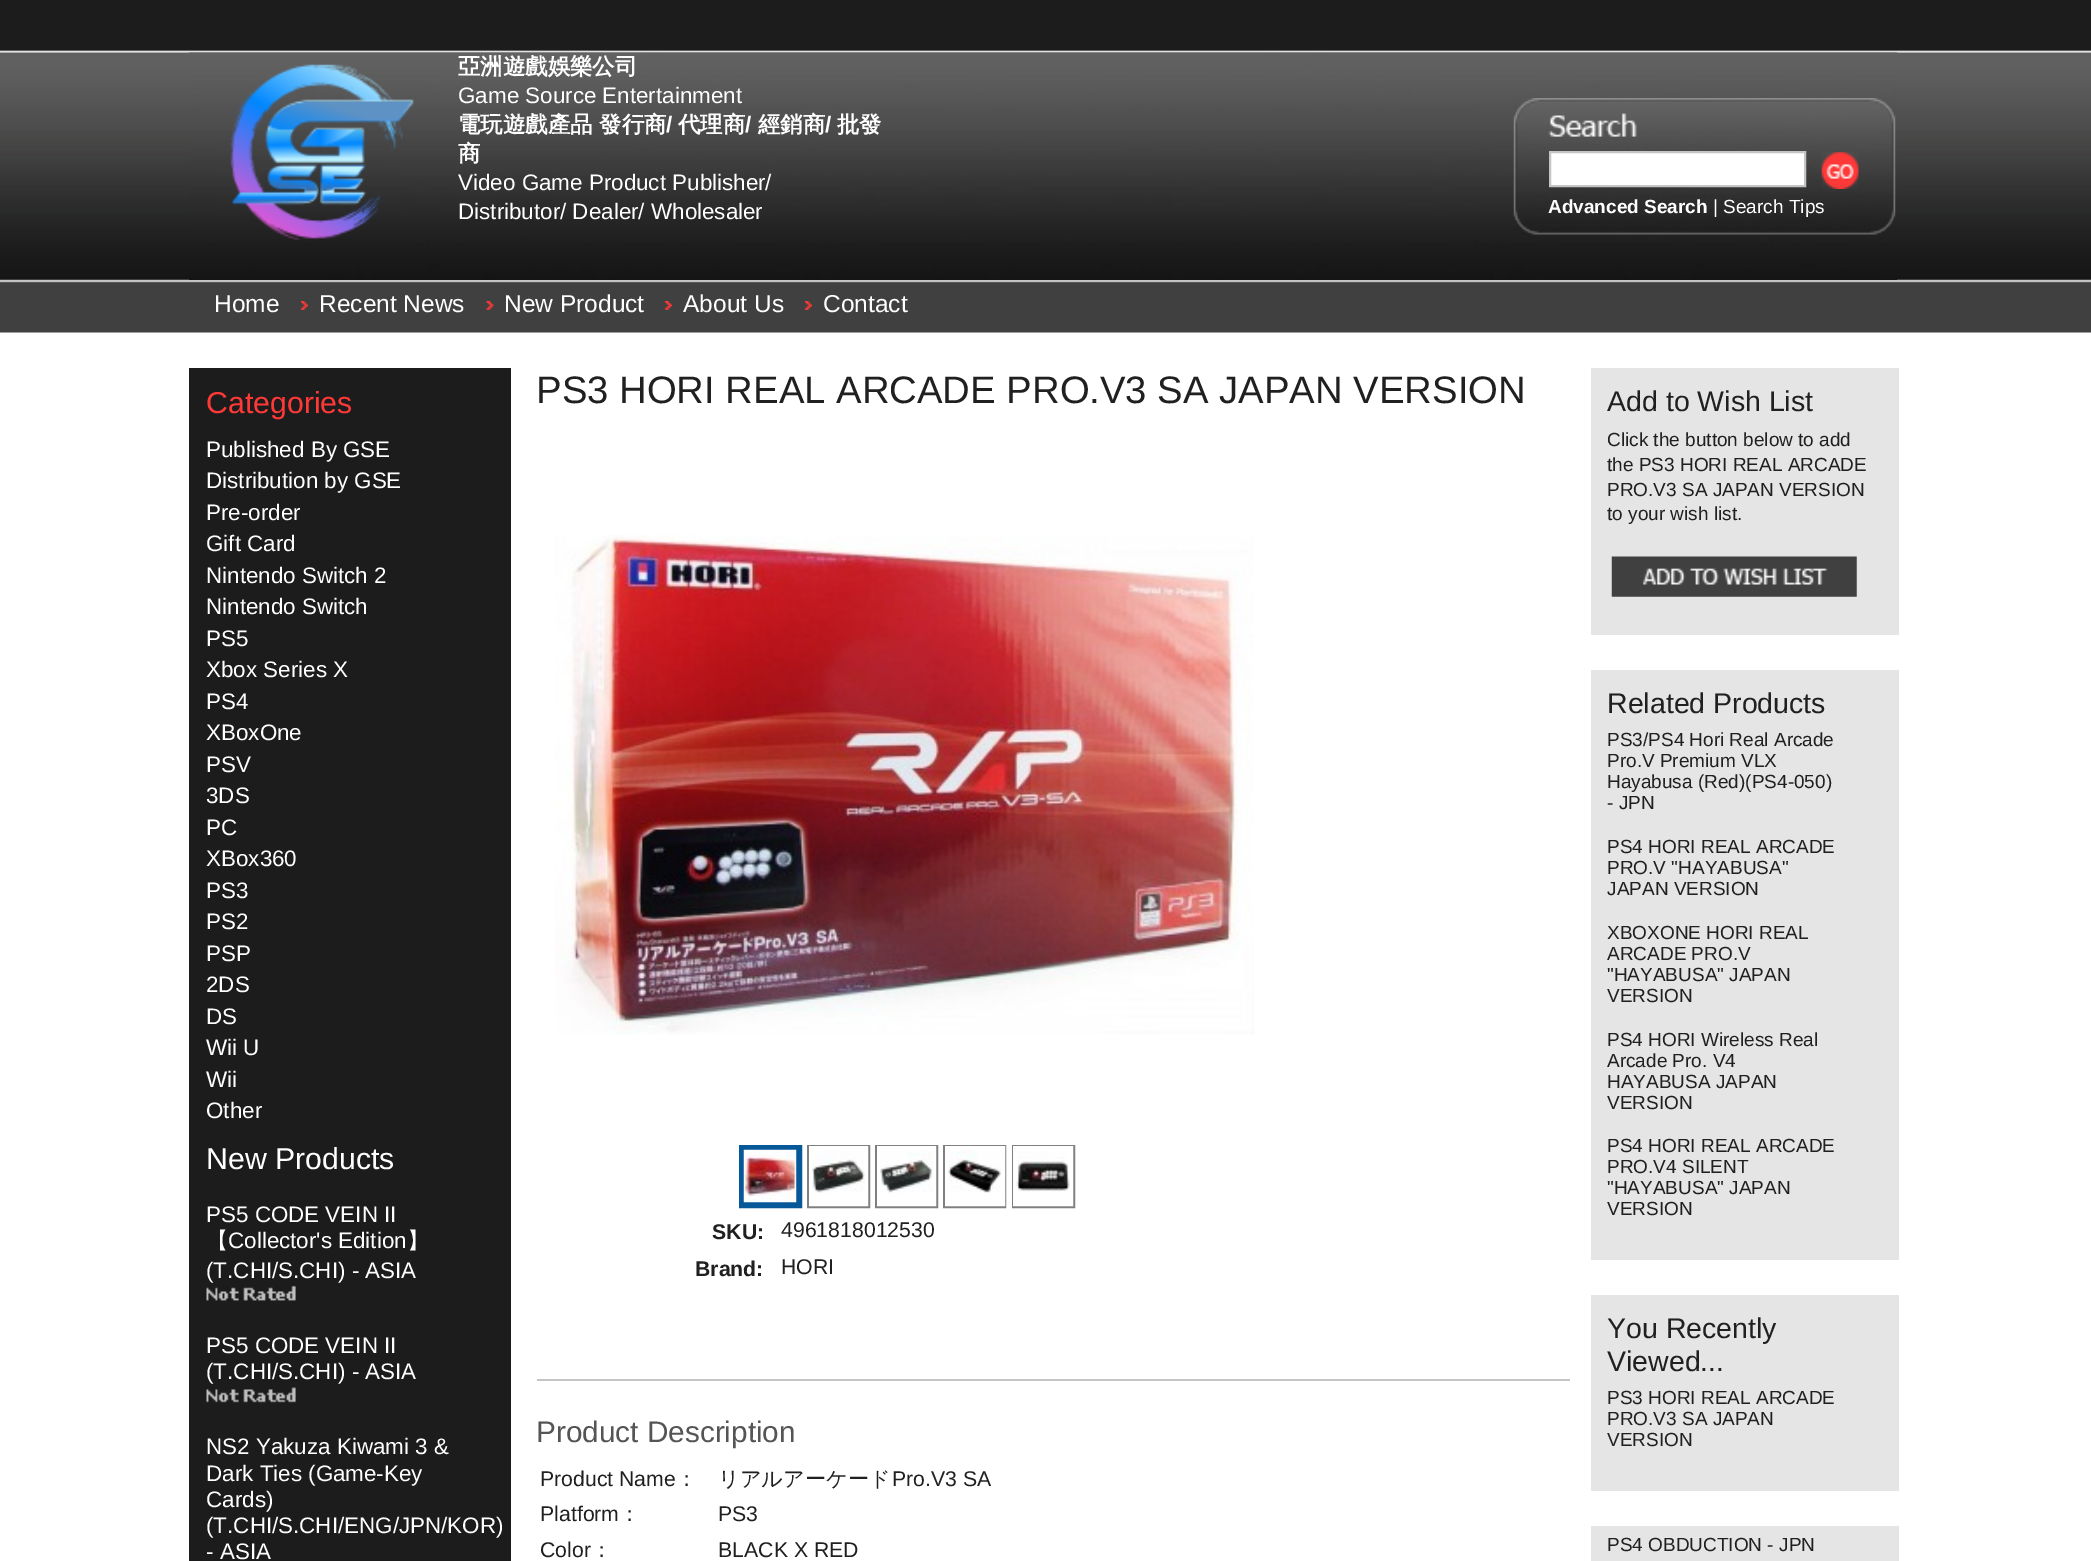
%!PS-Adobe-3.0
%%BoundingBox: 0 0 2091 1561
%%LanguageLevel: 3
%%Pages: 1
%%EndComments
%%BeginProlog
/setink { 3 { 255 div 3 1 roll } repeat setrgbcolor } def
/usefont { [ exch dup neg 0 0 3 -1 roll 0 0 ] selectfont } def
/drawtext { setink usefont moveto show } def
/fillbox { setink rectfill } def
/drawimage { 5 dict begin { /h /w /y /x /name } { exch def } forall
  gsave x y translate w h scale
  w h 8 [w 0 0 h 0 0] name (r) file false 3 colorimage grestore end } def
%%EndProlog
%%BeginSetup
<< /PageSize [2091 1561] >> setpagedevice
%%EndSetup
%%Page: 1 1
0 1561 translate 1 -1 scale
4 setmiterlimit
0 0 2091 1561 255 255 255 fillbox
(assets/img1.rgb) 0 0 2091 333 drawimage
(assets/img2.rgb) 189 52 1708 228 drawimage
(assets/img3.rgb) 230 64 184 176 drawimage
(亞洲遊戲娛樂公司) 458 74 /WenQuanYiZenHei-Bold 22.4 255 255 255 drawtext
(Game Source Entertainment) 458 103 /LiberationSans-Regular 22.4 255 255 255 drawtext
(電玩遊戲產品 發行商) 458 132 /WenQuanYiZenHei-Bold 22.4 255 255 255 drawtext
(/) 666 132 /LiberationSans-Bold 22.4 255 255 255 drawtext
(代理商) 678 132 /WenQuanYiZenHei-Bold 22.4 255 255 255 drawtext
(/) 745 132 /LiberationSans-Bold 22.4 255 255 255 drawtext
(經銷商) 758 132 /WenQuanYiZenHei-Bold 22.4 255 255 255 drawtext
(/) 825 132 /LiberationSans-Bold 22.4 255 255 255 drawtext
(批發) 837 132 /WenQuanYiZenHei-Bold 22.4 255 255 255 drawtext
(商) 458 161 /WenQuanYiZenHei-Bold 22.4 255 255 255 drawtext
(Video Game Product Publisher/) 458 190 /LiberationSans-Regular 22.4 255 255 255 drawtext
(Distributor/ Dealer/ Wholesaler) 458 219 /LiberationSans-Regular 22.4 255 255 255 drawtext
(assets/img4.rgb) 1513 98 383 137 drawimage
1550 152 moveto 1805 152 lineto 1805 186 lineto 1550 186 lineto closepath gsave fill grestore
197 197 197 setink
2 setlinewidth
stroke
(assets/img5.rgb) 1821 152 38 37 drawimage
(Advanced Search) 1548 213 /LiberationSans-Bold 19 255 255 255 drawtext
(| Search Tips) 1713 213 /LiberationSans-Regular 19 255 255 255 drawtext
(Home) 214 312 /LiberationSans-Regular 24.5 255 255 255 drawtext
(assets/img6.rgb) 301 301 7 9 drawimage
(Recent News) 319 312 /LiberationSans-Regular 24.5 255 255 255 drawtext
(assets/img7.rgb) 486 301 8 9 drawimage
(New Product) 504 312 /LiberationSans-Regular 24.5 255 255 255 drawtext
(assets/img6.rgb) 665 301 7 9 drawimage
(About Us) 683 312 /LiberationSans-Regular 24.5 255 255 255 drawtext
(assets/img8.rgb) 805 301 7 9 drawimage
(Contact) 823 312 /LiberationSans-Regular 24.5 255 255 255 drawtext
189 368 322 1193 28 28 28 fillbox
(Categories) 206 413 /LiberationSans-Regular 30.25 255 56 56 drawtext
(Published By GSE) 206 457 /LiberationSans-Regular 22.4 255 255 255 drawtext
(Distribution by GSE) 206 488 /LiberationSans-Regular 22.4 255 255 255 drawtext
(Pre-order) 206 520 /LiberationSans-Regular 22.4 255 255 255 drawtext
(Gift Card) 206 551 /LiberationSans-Regular 22.4 255 255 255 drawtext
(Nintendo Switch 2) 206 583 /LiberationSans-Regular 22.4 255 255 255 drawtext
(Nintendo Switch) 206 614 /LiberationSans-Regular 22.4 255 255 255 drawtext
(PS5) 206 646 /LiberationSans-Regular 22.4 255 255 255 drawtext
(Xbox Series X) 206 677 /LiberationSans-Regular 22.4 255 255 255 drawtext
(PS4) 206 709 /LiberationSans-Regular 22.4 255 255 255 drawtext
(XBoxOne) 206 740 /LiberationSans-Regular 22.4 255 255 255 drawtext
(PSV) 206 772 /LiberationSans-Regular 22.4 255 255 255 drawtext
(3DS) 206 803 /LiberationSans-Regular 22.4 255 255 255 drawtext
(PC) 206 835 /LiberationSans-Regular 22.4 255 255 255 drawtext
(XBox360) 206 866 /LiberationSans-Regular 22.4 255 255 255 drawtext
(PS3) 206 898 /LiberationSans-Regular 22.4 255 255 255 drawtext
(PS2) 206 929 /LiberationSans-Regular 22.4 255 255 255 drawtext
(PSP) 206 961 /LiberationSans-Regular 22.4 255 255 255 drawtext
(2DS) 206 992 /LiberationSans-Regular 22.4 255 255 255 drawtext
(DS) 206 1024 /LiberationSans-Regular 22.4 255 255 255 drawtext
(Wii U) 206 1055 /LiberationSans-Regular 22.4 255 255 255 drawtext
(Wii) 206 1087 /LiberationSans-Regular 22.4 255 255 255 drawtext
(Other) 206 1118 /LiberationSans-Regular 22.4 255 255 255 drawtext
(New Products) 206 1169 /LiberationSans-Regular 30.25 255 255 255 drawtext
(PS5 CODE VEIN II) 206 1222 /LiberationSans-Regular 22.4 255 255 255 drawtext
(【) 206 1248 /WenQuanYiZenHei-Medium 22.4 255 255 255 drawtext
(Collector's Edition) 228 1248 /LiberationSans-Regular 22.4 255 255 255 drawtext
(】) 407 1248 /WenQuanYiZenHei-Medium 22.4 255 255 255 drawtext
(\(T.CHI/S.CHI\) - ASIA) 206 1278 /LiberationSans-Regular 22.4 255 255 255 drawtext
(assets/img9.rgb) 206 1285 90 16 drawimage
(PS5 CODE VEIN II) 206 1353 /LiberationSans-Regular 22.4 255 255 255 drawtext
(\(T.CHI/S.CHI\) - ASIA) 206 1379 /LiberationSans-Regular 22.4 255 255 255 drawtext
(assets/img10.rgb) 206 1387 90 16 drawimage
(NS2 Yakuza Kiwami 3 &) 206 1454 /LiberationSans-Regular 22.4 255 255 255 drawtext
(Dark Ties \(Game-Key) 206 1481 /LiberationSans-Regular 22.4 255 255 255 drawtext
(Cards\)) 206 1507 /LiberationSans-Regular 22.4 255 255 255 drawtext
(\(T.CHI/S.CHI/ENG/JPN/KOR\)) 206 1533 /LiberationSans-Regular 22.4 255 255 255 drawtext
(- ASIA) 206 1559 /LiberationSans-Regular 22.4 255 255 255 drawtext
(PS3 HORI REAL ARCADE PRO.V3 SA JAPAN VERSION) 536 403 /LiberationSans-Regular 38.3 32 32 32 drawtext
(assets/img11.rgb) 555 535 699 500 drawimage
7 88 153 setink
740 1146 61 61 rectstroke
4 setlinewidth
742 1148 56 56 rectstroke
(assets/img12.rgb) 743 1149 54 54 drawimage
128 128 128 setink
2 setlinewidth
808 1146 61 61 rectstroke
255 255 255 setink
4 setlinewidth
811 1148 55 56 rectstroke
(assets/img13.rgb) 812 1150 53 43 drawimage
128 128 128 setink
2 setlinewidth
876 1146 61 61 rectstroke
255 255 255 setink
4 setlinewidth
879 1148 55 56 rectstroke
(assets/img14.rgb) 880 1150 53 43 drawimage
128 128 128 setink
2 setlinewidth
944 1146 61 61 rectstroke
255 255 255 setink
4 setlinewidth
947 1148 56 56 rectstroke
(assets/img15.rgb) 948 1150 53 43 drawimage
128 128 128 setink
2 setlinewidth
1013 1146 61 61 rectstroke
255 255 255 setink
4 setlinewidth
1015 1148 56 56 rectstroke
(assets/img16.rgb) 1016 1150 54 42 drawimage
(SKU:) 712 1239 /LiberationSans-Bold 21.25 32 32 32 drawtext
(4961818012530) 781 1237 /LiberationSans-Regular 21.25 32 32 32 drawtext
(Brand:) 695 1276 /LiberationSans-Bold 21.25 32 32 32 drawtext
(HORI) 781 1274 /LiberationSans-Regular 21.25 32 32 32 drawtext
537 1379 1033 2 197 197 197 fillbox
(Product Description) 536 1442 /LiberationSans-Regular 29.75 85 85 85 drawtext
(Product Name) 540 1486 /LiberationSans-Regular 21.25 32 32 32 drawtext
(：) 676 1486 /WenQuanYiZenHei-Medium 21.25 32 32 32 drawtext
(リアルアーケード) 718 1486 /WenQuanYiZenHei-Medium 21.25 32 32 32 drawtext
(Pro.V3 SA) 892 1486 /LiberationSans-Regular 21.25 32 32 32 drawtext
(Platform) 540 1521 /LiberationSans-Regular 21.25 32 32 32 drawtext
(：) 619 1521 /WenQuanYiZenHei-Medium 21.25 32 32 32 drawtext
(PS3) 718 1521 /LiberationSans-Regular 21.25 32 32 32 drawtext
(Color) 540 1557 /LiberationSans-Regular 21.25 32 32 32 drawtext
(：) 591 1557 /WenQuanYiZenHei-Medium 21.25 32 32 32 drawtext
(BLACK X RED) 718 1557 /LiberationSans-Regular 21.25 32 32 32 drawtext
1591 368 308 267 229 229 229 fillbox
(Add to Wish List) 1607 411 /LiberationSans-Regular 28.5 32 32 32 drawtext
(Click the button below to add) 1607 446 /LiberationSans-Regular 19 32 32 32 drawtext
(the PS3 HORI REAL ARCADE) 1607 471 /LiberationSans-Regular 19 32 32 32 drawtext
(PRO.V3 SA JAPAN VERSION) 1607 496 /LiberationSans-Regular 19 32 32 32 drawtext
(to your wish list.) 1607 520 /LiberationSans-Regular 19 32 32 32 drawtext
(assets/img17.rgb) 1611 556 246 41 drawimage
1591 670 308 590 229 229 229 fillbox
(Related Products) 1607 713 /LiberationSans-Regular 28.5 32 32 32 drawtext
(PS3/PS4 Hori Real Arcade) 1607 746 /LiberationSans-Regular 19 32 32 32 drawtext
(Pro.V Premium VLX) 1607 767 /LiberationSans-Regular 19 32 32 32 drawtext
(Hayabusa \(Red\)\(PS4-050\)) 1607 788 /LiberationSans-Regular 19 32 32 32 drawtext
(- JPN) 1607 809 /LiberationSans-Regular 19 32 32 32 drawtext
(PS4 HORI REAL ARCADE) 1607 853 /LiberationSans-Regular 19 32 32 32 drawtext
(PRO.V "HAYABUSA") 1607 874 /LiberationSans-Regular 19 32 32 32 drawtext
(JAPAN VERSION) 1607 895 /LiberationSans-Regular 19 32 32 32 drawtext
(XBOXONE HORI REAL) 1607 939 /LiberationSans-Regular 19 32 32 32 drawtext
(ARCADE PRO.V) 1607 960 /LiberationSans-Regular 19 32 32 32 drawtext
("HAYABUSA" JAPAN) 1607 981 /LiberationSans-Regular 19 32 32 32 drawtext
(VERSION) 1607 1002 /LiberationSans-Regular 19 32 32 32 drawtext
(PS4 HORI Wireless Real) 1607 1046 /LiberationSans-Regular 19 32 32 32 drawtext
(Arcade Pro. V4) 1607 1067 /LiberationSans-Regular 19 32 32 32 drawtext
(HAYABUSA JAPAN) 1607 1088 /LiberationSans-Regular 19 32 32 32 drawtext
(VERSION) 1607 1109 /LiberationSans-Regular 19 32 32 32 drawtext
(PS4 HORI REAL ARCADE) 1607 1152 /LiberationSans-Regular 19 32 32 32 drawtext
(PRO.V4 SILENT) 1607 1173 /LiberationSans-Regular 19 32 32 32 drawtext
("HAYABUSA" JAPAN) 1607 1194 /LiberationSans-Regular 19 32 32 32 drawtext
(VERSION) 1607 1215 /LiberationSans-Regular 19 32 32 32 drawtext
1591 1295 308 196 229 229 229 fillbox
(You Recently) 1607 1338 /LiberationSans-Regular 28.5 32 32 32 drawtext
(Viewed...) 1607 1371 /LiberationSans-Regular 28.5 32 32 32 drawtext
(PS3 HORI REAL ARCADE) 1607 1404 /LiberationSans-Regular 19 32 32 32 drawtext
(PRO.V3 SA JAPAN) 1607 1425 /LiberationSans-Regular 19 32 32 32 drawtext
(VERSION) 1607 1446 /LiberationSans-Regular 19 32 32 32 drawtext
1591 1526 308 35 229 229 229 fillbox
(PS4 OBDUCTION - JPN) 1607 1551 /LiberationSans-Regular 19 32 32 32 drawtext
showpage
%%EOF
